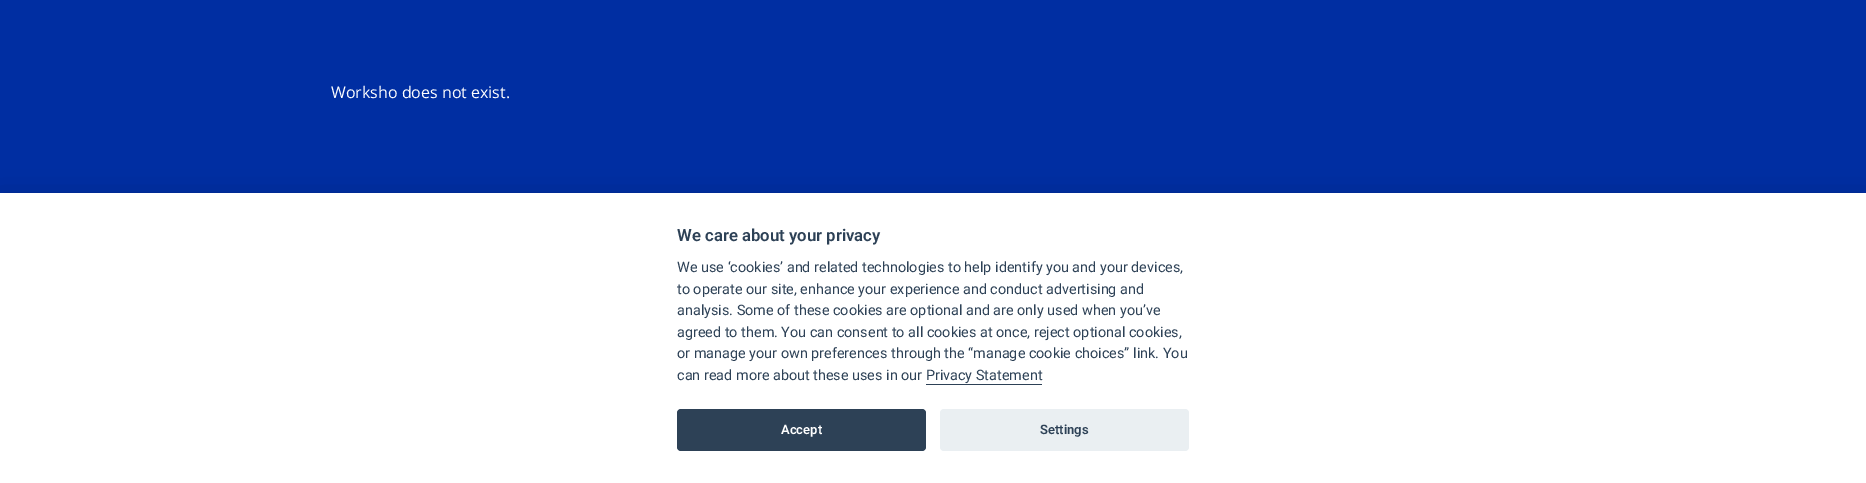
%!PS-Adobe-3.0
%%BoundingBox: 0 0 1866 483
%%LanguageLevel: 3
%%Pages: 1
%%EndComments
%%BeginProlog
/setink { 3 { 255 div 3 1 roll } repeat setrgbcolor } def
/usefont { [ exch dup neg 0 0 3 -1 roll 0 0 ] selectfont } def
/drawtext { setink usefont moveto show } def
/fillbox { setink rectfill } def
/setalpha { dup .setfillconstantalpha .setstrokeconstantalpha } def
/rrect { 5 dict begin { /r /h /w /y /x } { exch def } forall
  x r add y moveto x w add y 2 copy h add r arct x w add y h add x 1 index r arct
  x y h add x y r arct x y 2 copy exch w add exch r arct closepath end } def
/softshadow { 12 dict begin { /a /b /q /h /w /y /x } { exch def } forall gsave /was 0 def
  9 -2 -9 { dup b mul 4 div /e exch def 1 sub .425 mul 2.718 exch exp 1 add a .99 .min exch div /now exch def
    1 1 now sub 1 was sub div sub setalpha /was now def
    w h .min e 2 mul add 0 gt { x e sub y e sub w e 2 mul add h e 2 mul add
      q e add b .6 mul add w h .min 2 div e add .min 0 .max rrect fill } if } for grestore end } def
%%EndProlog
%%BeginSetup
<< /PageSize [1866 483] /PageUsesTransparency true >> setpagedevice
%%EndSetup
%%Page: 1 1
0 .pushpdf14devicefilter
0 483 translate 1 -1 scale
4 setmiterlimit
0 0 1866 483 0 46 162 fillbox
(Worksho does not exist.) 331 98 /OpenSans-Regular 16 255 255 255 drawtext
2 2 3 setink
0 203 1866 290 0 15 0.28 softshadow
0 193 1866 290 255 255 255 fillbox
(We care about your privacy) 677 241 /Roboto-SemiBold 16.75 45 65 86 drawtext
(We use ‘cookies’ and related technologies to help identify you and your devices,) 677 272 /Roboto-Regular 14.4 45 65 86 drawtext
(to operate our site, enhance your experience and conduct advertising and) 677 294 /Roboto-Regular 14.4 45 65 86 drawtext
(analysis. Some of these cookies are optional and are only used when you’ve) 677 315 /Roboto-Regular 14.4 45 65 86 drawtext
(agreed to them. You can consent to all cookies at once, reject optional cookies,) 677 337 /Roboto-Regular 14.4 45 65 86 drawtext
(or manage your own preferences through the “manage cookie choices” link. You) 677 358 /Roboto-Regular 14.4 45 65 86 drawtext
(can read more about these uses in our Privacy Statement) 677 380 /Roboto-Regular 14.4 45 65 86 drawtext
926 384 116 1 45 65 86 fillbox
677 409 249 42 4 rrect fill
(Accept) 781 434 /Roboto-SemiBold 13 255 255 255 drawtext
234 239 242 setink
940 409 249 42 4 rrect fill
(Settings) 1040 434 /Roboto-SemiBold 13 45 65 86 drawtext
.poppdf14devicefilter showpage
%%EOF
